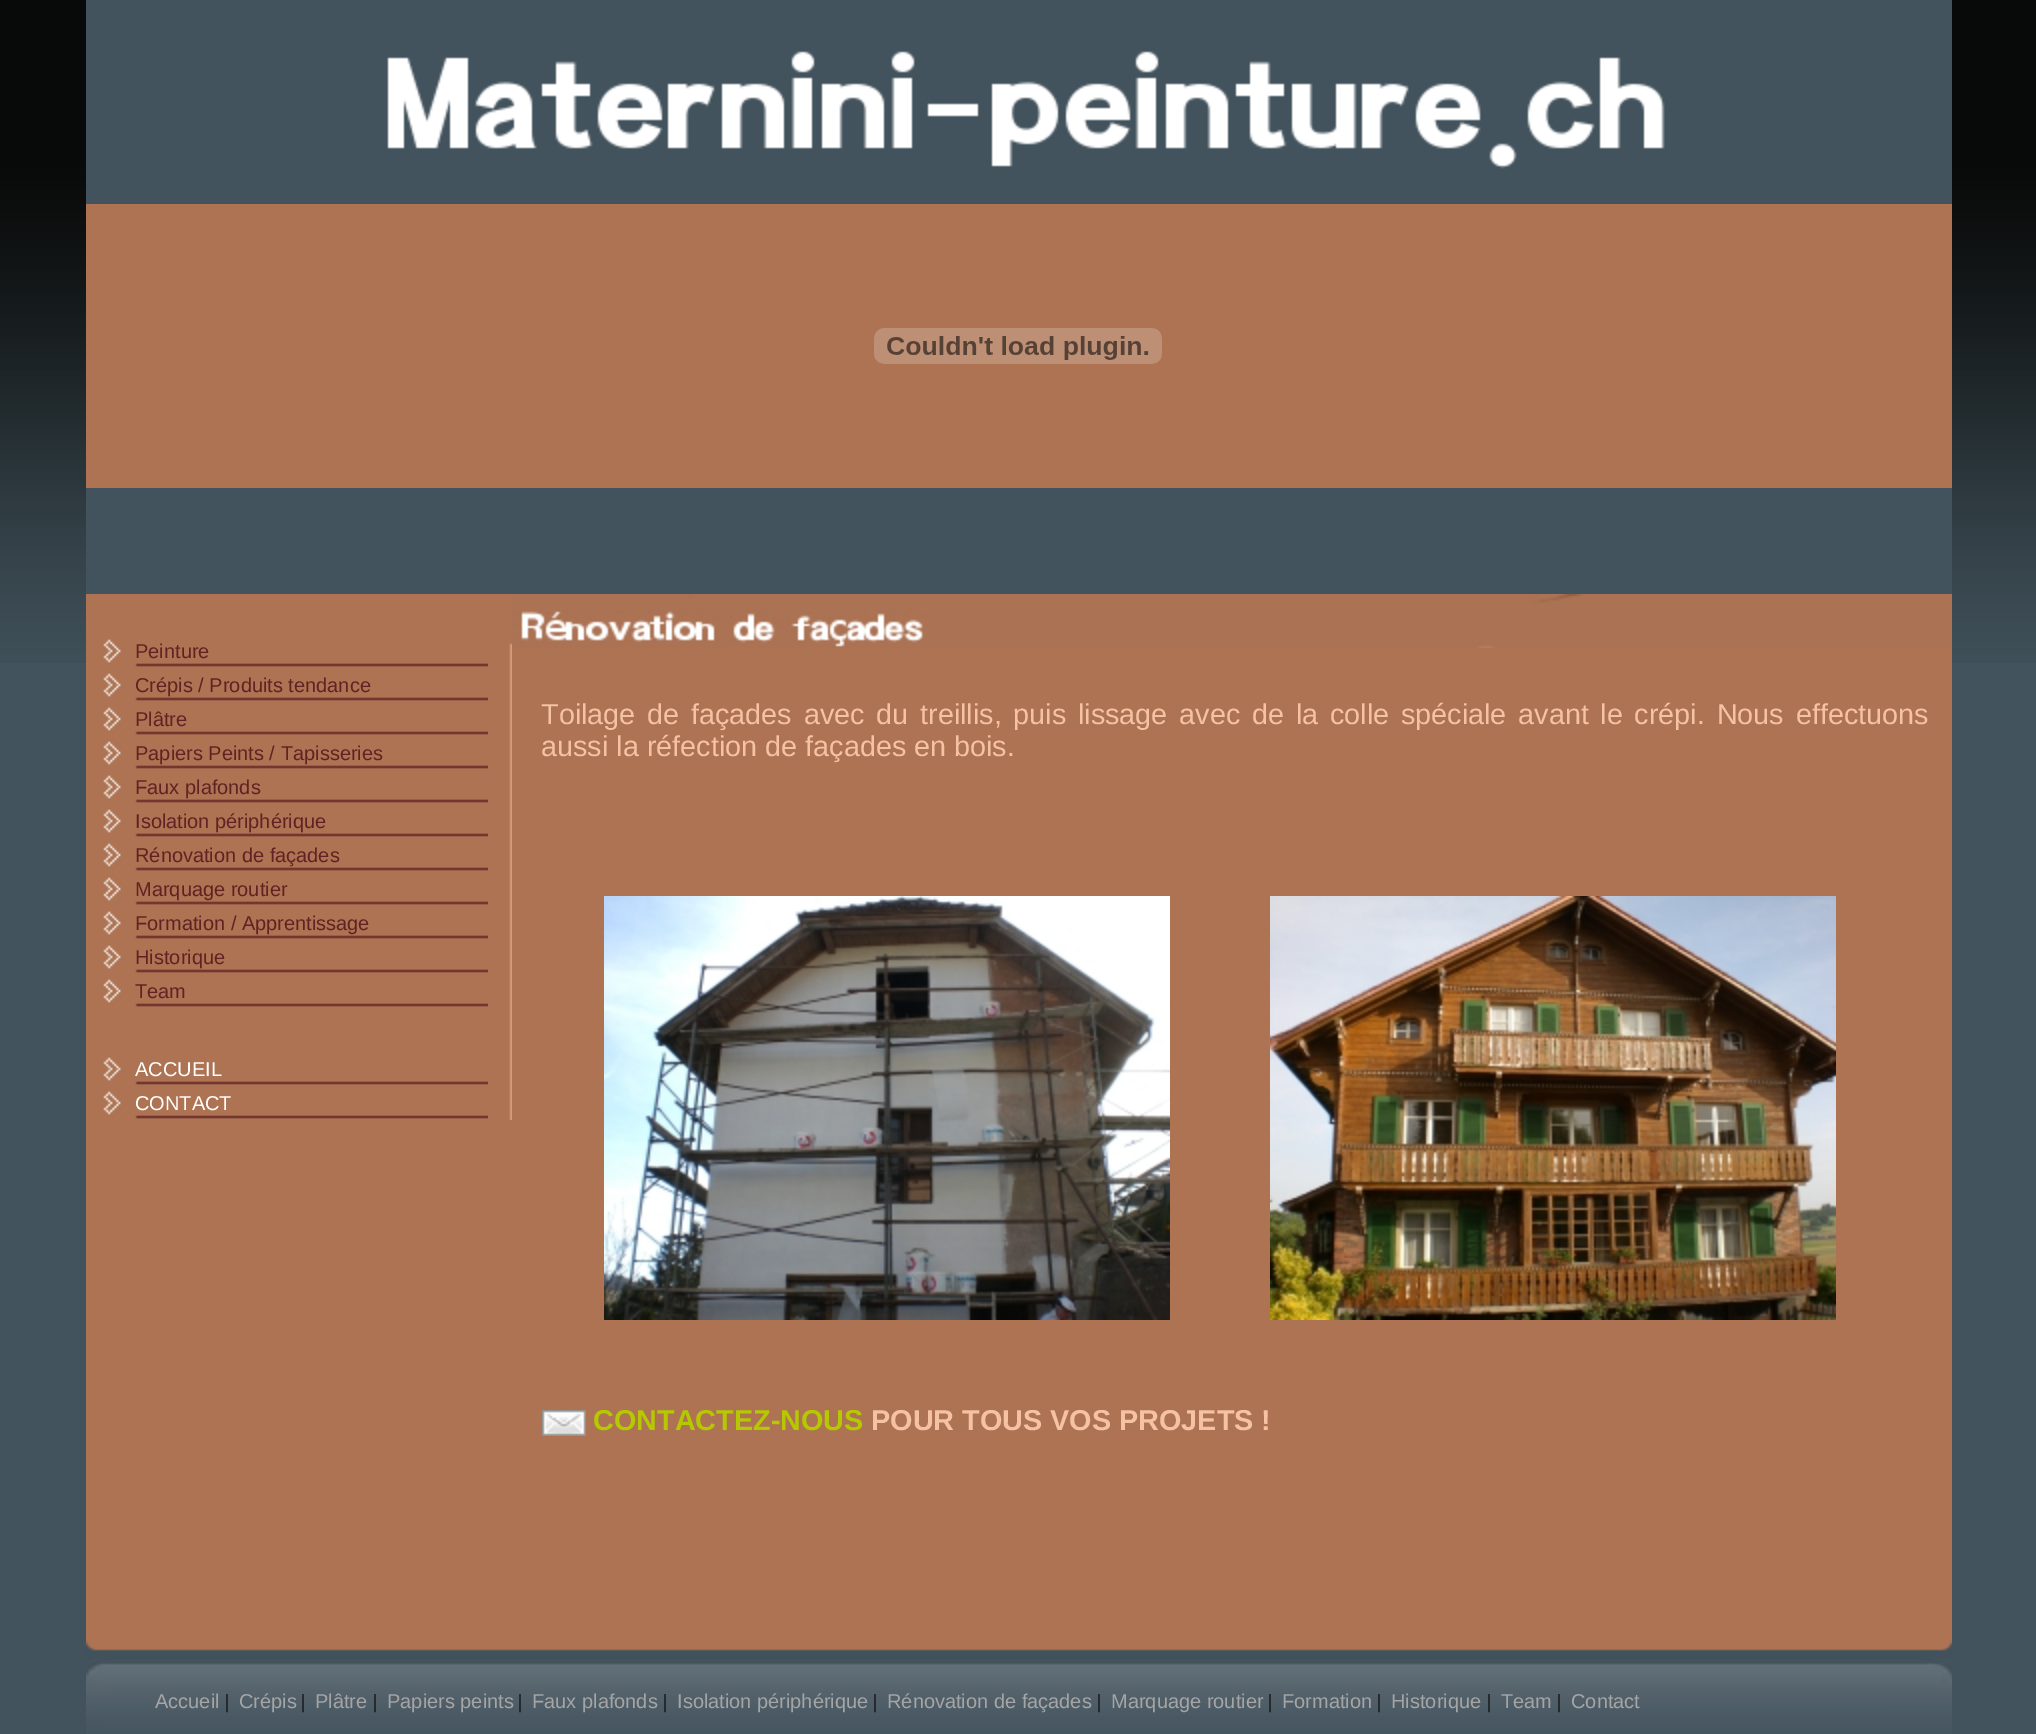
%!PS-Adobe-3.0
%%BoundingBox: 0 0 2036 1734
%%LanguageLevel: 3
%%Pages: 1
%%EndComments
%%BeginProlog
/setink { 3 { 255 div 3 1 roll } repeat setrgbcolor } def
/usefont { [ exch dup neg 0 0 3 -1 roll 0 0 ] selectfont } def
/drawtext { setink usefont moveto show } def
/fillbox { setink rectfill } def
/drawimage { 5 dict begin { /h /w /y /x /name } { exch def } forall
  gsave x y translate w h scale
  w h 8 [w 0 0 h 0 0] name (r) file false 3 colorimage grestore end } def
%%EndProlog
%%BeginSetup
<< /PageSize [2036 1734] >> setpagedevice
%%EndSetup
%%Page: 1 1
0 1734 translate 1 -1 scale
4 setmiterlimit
0 0 2036 1734 67 83 93 fillbox
(assets/img1.rgb) 0 0 2036 663 drawimage
86 204 1866 1436 173 115 83 fillbox
86 0 1866 204 67 83 93 fillbox
(assets/img2.rgb) 387 51 1278 118 drawimage
(assets/img3.rgb) 874 328 288 36 drawimage
86 488 1866 106 67 83 93 fillbox
(assets/img4.rgb) 509 643 3 477 drawimage
(assets/img5.rgb) 103 639 385 28 drawimage
(Peinture) 135 658 /LiberationSans-Regular 20 96 35 35 drawtext
(assets/img5.rgb) 103 673 385 28 drawimage
(Crépis / Produits tendance) 135 692 /LiberationSans-Regular 20 96 35 35 drawtext
(assets/img5.rgb) 103 707 385 28 drawimage
(Plâtre) 135 726 /LiberationSans-Regular 20 96 35 35 drawtext
(assets/img5.rgb) 103 741 385 28 drawimage
(Papiers Peints / Tapisseries) 135 760 /LiberationSans-Regular 20 96 35 35 drawtext
(assets/img5.rgb) 103 775 385 28 drawimage
(Faux plafonds) 135 794 /LiberationSans-Regular 20 96 35 35 drawtext
(assets/img5.rgb) 103 809 385 28 drawimage
(Isolation périphérique) 135 828 /LiberationSans-Regular 20 96 35 35 drawtext
(assets/img5.rgb) 103 843 385 28 drawimage
(Rénovation de façades) 135 862 /LiberationSans-Regular 20 96 35 35 drawtext
(assets/img5.rgb) 103 877 385 28 drawimage
(Marquage routier) 135 896 /LiberationSans-Regular 20 96 35 35 drawtext
(assets/img5.rgb) 103 911 385 28 drawimage
(Formation / Apprentissage) 135 930 /LiberationSans-Regular 20 96 35 35 drawtext
(assets/img5.rgb) 103 945 385 28 drawimage
(Historique) 135 964 /LiberationSans-Regular 20 96 35 35 drawtext
(assets/img5.rgb) 103 979 385 28 drawimage
(Team) 135 998 /LiberationSans-Regular 20 96 35 35 drawtext
(assets/img5.rgb) 103 1057 385 28 drawimage
(ACCUEIL) 135 1076 /LiberationSans-Regular 20 255 255 255 drawtext
(assets/img5.rgb) 103 1091 385 28 drawimage
(CONTACT) 135 1110 /LiberationSans-Regular 20 255 255 255 drawtext
(assets/img6.rgb) 512 594 1440 54 drawimage
/LiberationSans-Regular 28.8 usefont
246 194 164 setink
541 724 moveto 3.75 0 32 (Toilage de façades avec du treillis, puis lissage avec de la colle spéciale avant le crépi. Nous effectuons) widthshow
(aussi la réfection de façades en bois.) 541 756 /LiberationSans-Regular 28.8 246 194 164 drawtext
(assets/img7.rgb) 604 896 566 424 drawimage
(assets/img8.rgb) 1270 896 566 424 drawimage
(assets/img9.rgb) 542 1410 44 26 drawimage
(CONTACTEZ-NOUS) 593 1430 /LiberationSans-Bold 28.8 182 201 0 drawtext
(POUR TOUS VOS PROJETS !) 871 1430 /LiberationSans-Bold 28.8 246 194 164 drawtext
(assets/img10.rgb) 86 1640 1866 94 drawimage
(Accueil) 155 1708 /LiberationSans-Regular 20 165 165 165 drawtext
(|) 225 1708 /LiberationSerif-Regular 20 0 0 0 drawtext
(Crépis) 239 1708 /LiberationSans-Regular 20 165 165 165 drawtext
(|) 301 1708 /LiberationSerif-Regular 20 0 0 0 drawtext
(Plâtre) 315 1708 /LiberationSans-Regular 20 165 165 165 drawtext
(|) 373 1708 /LiberationSerif-Regular 20 0 0 0 drawtext
(Papiers peints) 387 1708 /LiberationSans-Regular 20 165 165 165 drawtext
(|) 518 1708 /LiberationSerif-Regular 20 0 0 0 drawtext
(Faux plafonds) 532 1708 /LiberationSans-Regular 20 165 165 165 drawtext
(|) 663 1708 /LiberationSerif-Regular 20 0 0 0 drawtext
(Isolation périphérique) 677 1708 /LiberationSans-Regular 20 165 165 165 drawtext
(|) 873 1708 /LiberationSerif-Regular 20 0 0 0 drawtext
(Rénovation de façades) 887 1708 /LiberationSans-Regular 20 165 165 165 drawtext
(|) 1097 1708 /LiberationSerif-Regular 20 0 0 0 drawtext
(Marquage routier) 1111 1708 /LiberationSans-Regular 20 165 165 165 drawtext
(|) 1268 1708 /LiberationSerif-Regular 20 0 0 0 drawtext
(Formation) 1282 1708 /LiberationSans-Regular 20 165 165 165 drawtext
(|) 1377 1708 /LiberationSerif-Regular 20 0 0 0 drawtext
(Historique) 1391 1708 /LiberationSans-Regular 20 165 165 165 drawtext
(|) 1487 1708 /LiberationSerif-Regular 20 0 0 0 drawtext
(Team) 1501 1708 /LiberationSans-Regular 20 165 165 165 drawtext
(|) 1557 1708 /LiberationSerif-Regular 20 0 0 0 drawtext
(Contact) 1571 1708 /LiberationSans-Regular 20 165 165 165 drawtext
showpage
%%EOF
